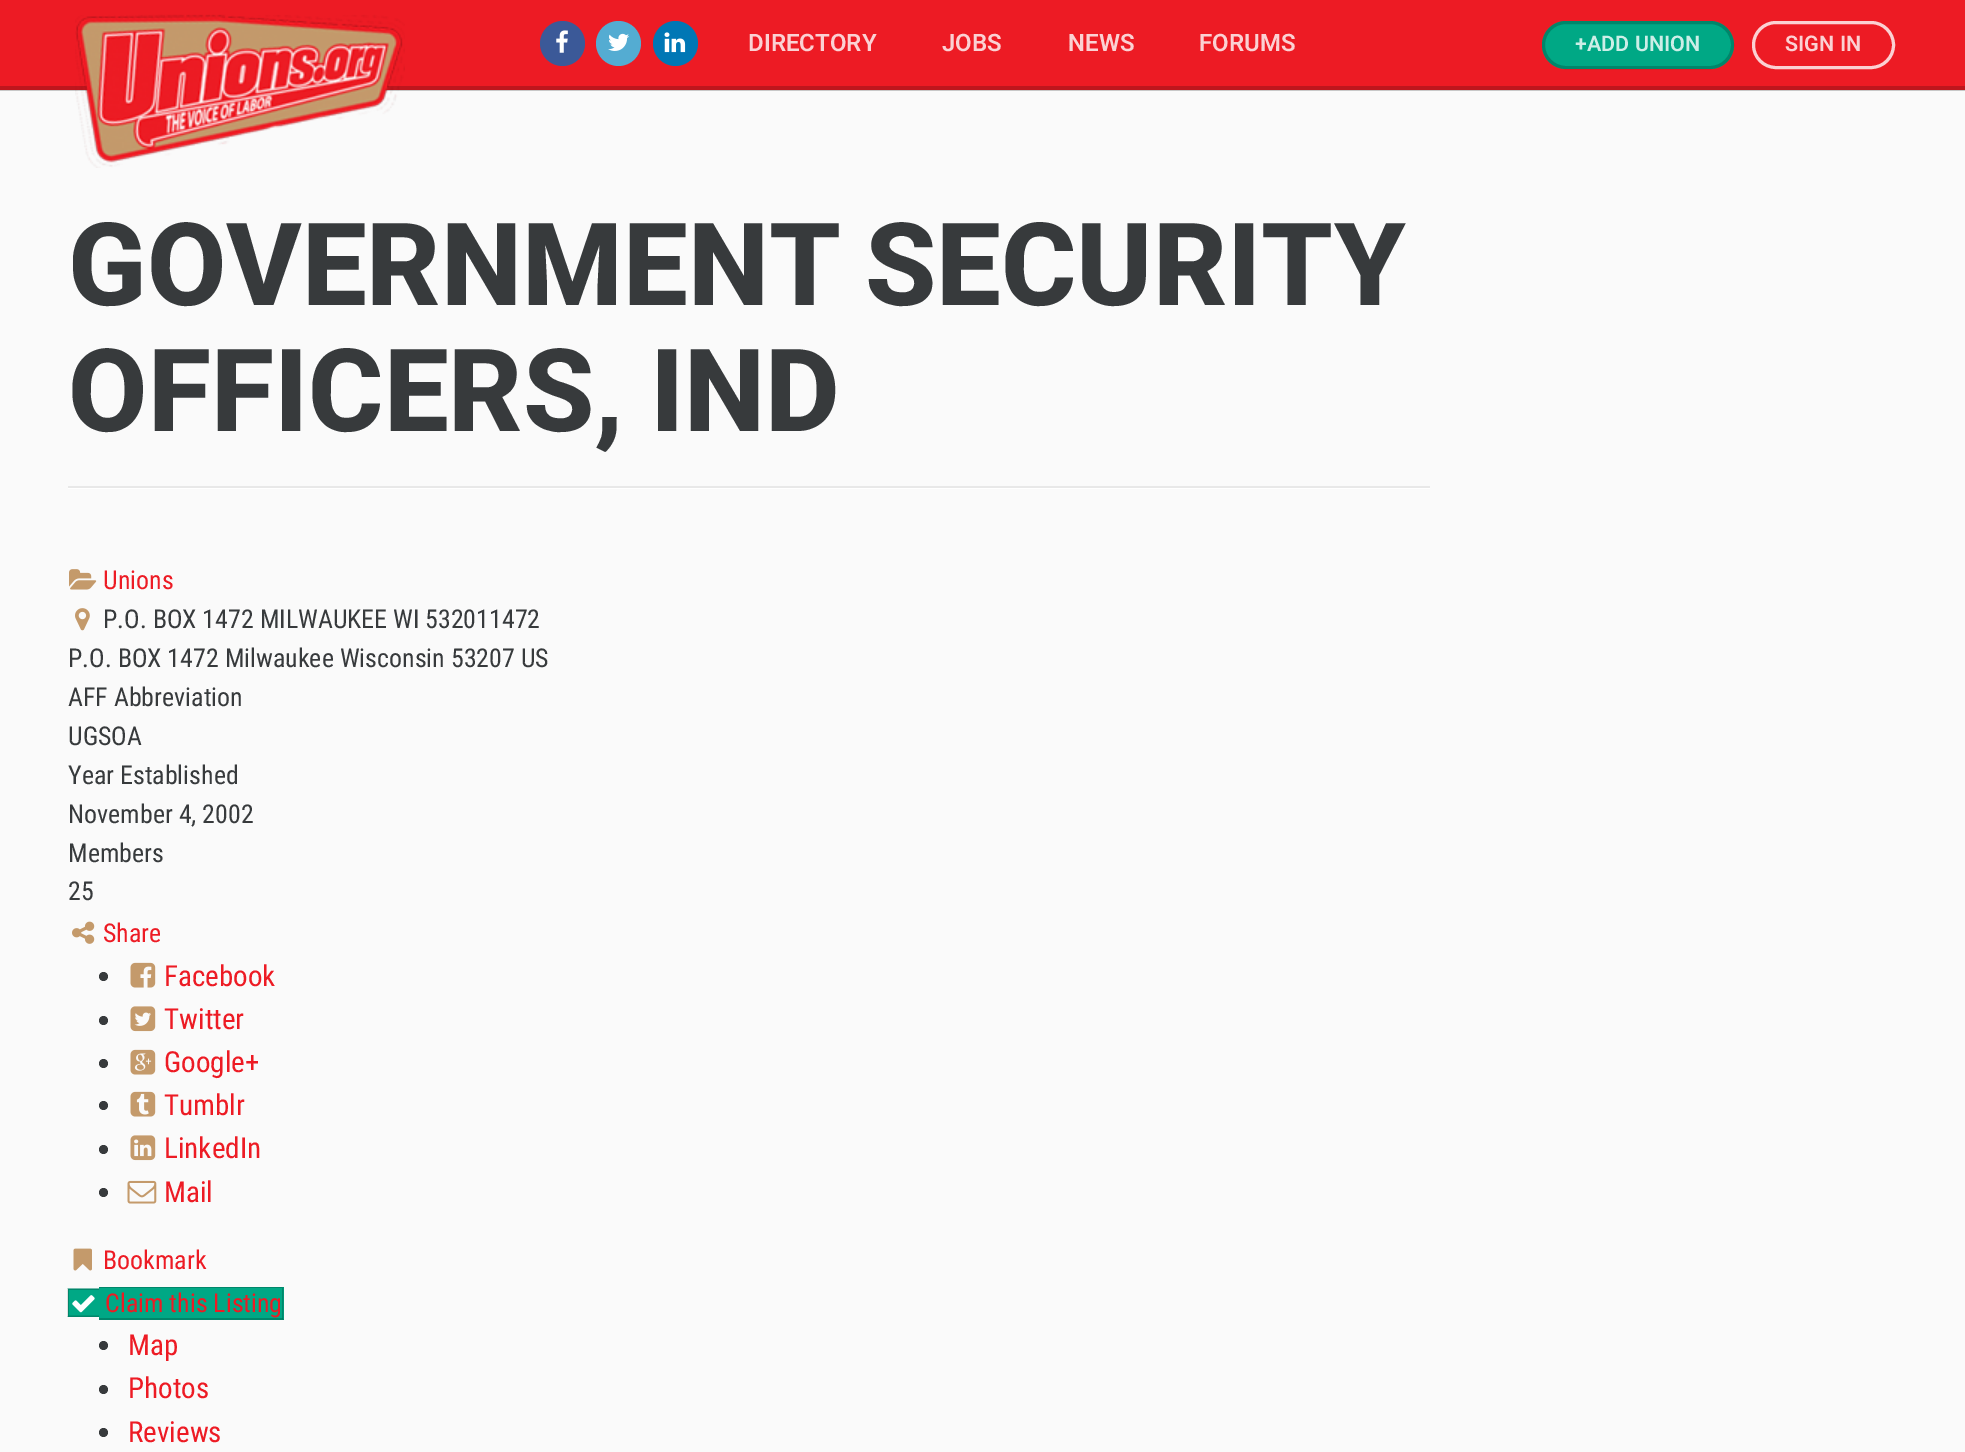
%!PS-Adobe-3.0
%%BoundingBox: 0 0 1965 1452
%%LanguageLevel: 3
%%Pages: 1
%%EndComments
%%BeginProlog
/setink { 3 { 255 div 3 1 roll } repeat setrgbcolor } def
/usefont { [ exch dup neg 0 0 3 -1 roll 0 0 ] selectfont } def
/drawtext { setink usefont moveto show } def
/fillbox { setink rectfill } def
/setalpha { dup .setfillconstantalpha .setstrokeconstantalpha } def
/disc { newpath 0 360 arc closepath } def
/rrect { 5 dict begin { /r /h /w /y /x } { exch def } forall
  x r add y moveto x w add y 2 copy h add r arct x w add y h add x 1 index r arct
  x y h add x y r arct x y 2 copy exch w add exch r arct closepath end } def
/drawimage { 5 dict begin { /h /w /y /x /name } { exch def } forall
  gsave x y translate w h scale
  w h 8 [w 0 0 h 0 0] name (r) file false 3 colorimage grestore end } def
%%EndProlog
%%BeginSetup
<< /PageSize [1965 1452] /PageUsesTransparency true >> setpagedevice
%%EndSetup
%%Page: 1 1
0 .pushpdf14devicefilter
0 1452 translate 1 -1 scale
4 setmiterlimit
0 0 1965 1452 250 250 250 fillbox
0 90 1965 1 200 200 200 fillbox
0 0 1965 86 237 27 36 fillbox
0 86 1965 4 190 22 29 fillbox
(assets/img1.rgb) 75 14 330 154 drawimage
59 89 152 setink
562.5 43.5 22.5 disc fill
(assets/img2.rgb) 556 30 12 23 drawimage
84 172 210 setink
618.5 43.5 22.5 disc fill
(assets/img3.rgb) 608 33 21 18 drawimage
0 119 181 setink
675.5 43.5 22.5 disc fill
(assets/img4.rgb) 664 32 22 21 drawimage
(DIRECTORY) 748 51 /Roboto-SemiBold 24 251 209 211 drawtext
(JOBS) 942 51 /Roboto-SemiBold 24 251 209 211 drawtext
(NEWS) 1068 51 /Roboto-SemiBold 24 251 209 211 drawtext
(FORUMS) 1199 51 /Roboto-SemiBold 24 251 209 211 drawtext
0 168 133 setink
1542 21 192 48 24 rrect fill
0.2 setalpha
0 0 0 setink
3 setlinewidth
1543.5 22.5 189 45 22.5 rrect stroke
1 setalpha
(+ADD UNION) 1575 51 /Roboto-SemiBold 21.5 204 238 231 drawtext
251 209 211 setink
1753.5 22.5 140 45 22.5 rrect stroke
(SIGN IN) 1785 51 /Roboto-SemiBold 21.5 251 209 211 drawtext
255 255 255 setink
68 488 moveto 68 489 lineto 1430 489 lineto 1430 204 lineto 1430 488 lineto closepath fill
68 486 1362 2 232 232 232 fillbox
/Roboto-ExtraBold 115.25 usefont
55 58 60 setink
68 305 moveto -5 0 32 (GOVERNMENT SECURITY) widthshow
68 431 moveto -3 0 32 (OFFICERS, IND) widthshow
(assets/img5.rgb) 69 569 28 21 drawimage
(Unions) 103 589 /RobotoCondensed-Regular 25.9 237 27 36 drawtext
(assets/img6.rgb) 75 608 15 23 drawimage
(P.O. BOX 1472 MILWAUKEE WI 532011472) 103 628 /RobotoCondensed-Regular 25.9 55 58 60 drawtext
(P.O. BOX 1472 Milwaukee Wisconsin 53207 US) 68 667 /RobotoCondensed-Regular 25.9 55 58 60 drawtext
(AFF Abbreviation) 68 706 /RobotoCondensed-Regular 25.9 55 58 60 drawtext
(UGSOA) 68 745 /RobotoCondensed-Regular 25.9 55 58 60 drawtext
(Year Established) 68 784 /RobotoCondensed-Regular 25.9 55 58 60 drawtext
(November 4, 2002) 68 823 /RobotoCondensed-Regular 25.9 55 58 60 drawtext
(Members) 68 862 /RobotoCondensed-Regular 25.9 55 58 60 drawtext
(25) 68 900 /RobotoCondensed-Regular 25.9 55 58 60 drawtext
(assets/img7.rgb) 72 921 23 23 drawimage
(Share) 103 942 /RobotoCondensed-Regular 25.9 237 27 36 drawtext
55 58 60 setink
103.5 976.5 4.5 disc fill
(assets/img8.rgb) 130 962 26 26 drawimage
(Facebook) 164 986 /RobotoCondensed-Regular 29 237 27 36 drawtext
55 58 60 setink
103.5 1020.5 4.5 disc fill
(assets/img9.rgb) 130 1006 26 26 drawimage
(Twitter) 164 1029 /RobotoCondensed-Regular 29 237 27 36 drawtext
55 58 60 setink
103.5 1063.5 4.5 disc fill
(assets/img10.rgb) 130 1049 26 26 drawimage
(Google+) 164 1072 /RobotoCondensed-Regular 29 237 27 36 drawtext
55 58 60 setink
103.5 1105.5 4.5 disc fill
(assets/img11.rgb) 130 1091 26 26 drawimage
(Tumblr) 164 1115 /RobotoCondensed-Regular 29 237 27 36 drawtext
55 58 60 setink
103.5 1149.5 4.5 disc fill
(assets/img12.rgb) 130 1135 26 26 drawimage
(LinkedIn) 164 1158 /RobotoCondensed-Regular 29 237 27 36 drawtext
55 58 60 setink
103.5 1192.5 4.5 disc fill
(assets/img13.rgb) 127 1180 30 24 drawimage
(Mail) 164 1202 /RobotoCondensed-Regular 29 237 27 36 drawtext
(assets/img14.rgb) 73 1248 19 23 drawimage
(Bookmark) 103 1269 /RobotoCondensed-Regular 25.9 237 27 36 drawtext
68 1289 31 28 0 168 133 fillbox
0 134 106 setink
67.5 1288.5 moveto 99 1288.5 lineto 99 1290 lineto 69 1290 lineto closepath 99 1317 moveto 67.5 1317 lineto 69 1315.5 lineto 99 1315.5 lineto closepath fill
0.2 setalpha
0 0 0 setink
67.5 1317 moveto 67.5 1288.5 lineto 69 1290 lineto 69 1315.5 lineto closepath fill
1 setalpha
99 1287 185 33 0 168 133 fillbox
0 134 106 setink
99 1287 moveto 284 1287 lineto 282 1288 lineto 99 1288 lineto closepath fill
283.5 1287 moveto 283.5 1320 lineto 282 1318.5 lineto 282 1288.5 lineto closepath fill
0.2 setalpha
0 0 0 setink
284 1320 moveto 99 1320 lineto 99 1318 lineto 282 1318 lineto closepath fill
1 setalpha
(assets/img15.rgb) 72 1295 23 18 drawimage
(Claim this Listing) 105 1312 /RobotoCondensed-Regular 25.9 237 27 36 drawtext
55 58 60 setink
103.5 1345.5 4.5 disc fill
(Map) 128 1355 /RobotoCondensed-Regular 29 237 27 36 drawtext
55 58 60 setink
103.5 1389.5 4.5 disc fill
(Photos) 128 1398 /RobotoCondensed-Regular 29 237 27 36 drawtext
55 58 60 setink
103.5 1432.5 4.5 disc fill
(Reviews) 128 1442 /RobotoCondensed-Regular 29 237 27 36 drawtext
.poppdf14devicefilter showpage
%%EOF
